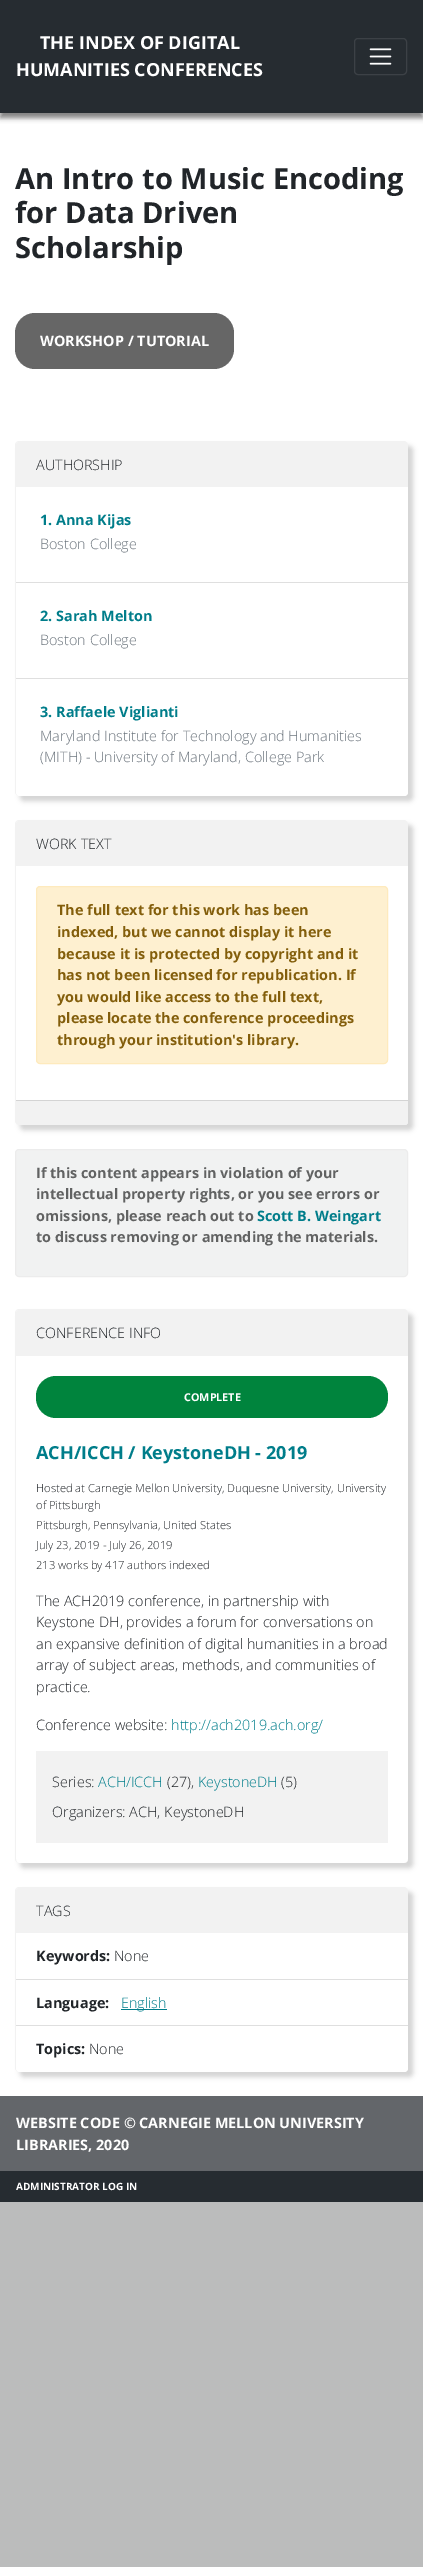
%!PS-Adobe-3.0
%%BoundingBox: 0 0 423 2567
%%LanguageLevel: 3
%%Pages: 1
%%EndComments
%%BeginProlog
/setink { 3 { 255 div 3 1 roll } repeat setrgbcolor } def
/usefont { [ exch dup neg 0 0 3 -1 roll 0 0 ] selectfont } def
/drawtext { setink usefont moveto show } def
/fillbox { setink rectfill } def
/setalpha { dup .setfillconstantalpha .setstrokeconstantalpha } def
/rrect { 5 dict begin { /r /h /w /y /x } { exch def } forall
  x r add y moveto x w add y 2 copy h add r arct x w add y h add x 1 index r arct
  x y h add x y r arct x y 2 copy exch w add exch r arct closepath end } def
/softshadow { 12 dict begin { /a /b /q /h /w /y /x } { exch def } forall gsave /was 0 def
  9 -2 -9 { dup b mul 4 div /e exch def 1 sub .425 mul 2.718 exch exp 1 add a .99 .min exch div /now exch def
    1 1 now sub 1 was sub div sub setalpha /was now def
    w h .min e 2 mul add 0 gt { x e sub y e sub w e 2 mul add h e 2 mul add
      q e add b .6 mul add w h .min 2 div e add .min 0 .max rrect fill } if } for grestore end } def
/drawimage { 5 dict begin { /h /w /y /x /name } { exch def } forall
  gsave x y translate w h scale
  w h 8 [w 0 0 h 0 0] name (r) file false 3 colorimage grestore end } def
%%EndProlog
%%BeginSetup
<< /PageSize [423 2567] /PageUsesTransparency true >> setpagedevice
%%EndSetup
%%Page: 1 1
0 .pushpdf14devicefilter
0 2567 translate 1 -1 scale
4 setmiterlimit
0 0 423 2567 187 188 188 fillbox
0 113 423 1983 255 255 255 fillbox
128 128 128 setink
0 5 423 113 0 2.5 1 softshadow
0 0 423 113 38 44 49 fillbox
(THE INDEX OF DIGITAL) 40 49 /OpenSans-Bold 18 255 255 255 drawtext
(HUMANITIES CONFERENCES) 16 76 /OpenSans-Bold 18 255 255 255 drawtext
60 65 70 setink
354.5 38.5 52 36 3.5 rrect stroke
(assets/img1.rgb) 369 48 23 17 drawimage
(An Intro to Music Encoding) 15 189 /OpenSans-Bold 29.1 33 37 41 drawtext
(for Data Driven) 15 223 /OpenSans-Bold 29.1 33 37 41 drawtext
(Scholarship) 15 258 /OpenSans-Bold 29.1 33 37 41 drawtext
102 102 102 setink
15 313 219 56 20 rrect fill
(WORKSHOP / TUTORIAL) 40 346 /OpenSans-Bold 14.4 255 255 255 drawtext
211 211 211 setink
20 446 393 355 4 2.5 1 softshadow
255 255 255 setink
15 441 393 355 4 rrect fill
242 242 242 setink
19 441 moveto 404 441 lineto 406 441 408 443 408 445 curveto 408 792 lineto 408 794 406 796 404 796 curveto 19 796 lineto 17 796 15 794 15 792 curveto 15 445 lineto 15 443 17 441 19 441 curveto closepath 19 442 moveto 404 442 lineto 406 442 408 443 408 445 curveto 408 792 lineto 408 794 406 796 404 796 curveto 19 796 lineto 17 796 16 794 16 792 curveto 16 445 lineto 16 443 17 442 19 442 curveto closepath eofill
19 442 moveto 405 442 lineto 406.5 442 408 443.5 408 445 curveto 408 487 lineto 16 487 lineto 16 445 lineto 16 443.5 17.5 442 19 442 curveto closepath fill
(AUTHORSHIP) 36 470 /OpenSans-Light 14.4 33 37 41 drawtext
16 582 392 1 223 223 223 fillbox
(1. Anna Kijas) 40 525 /OpenSans-Bold 14.4 0 125 138 drawtext
(Boston College) 40 549 /OpenSans-Light 14.4 108 117 125 drawtext
16 678 392 1 223 223 223 fillbox
(2. Sarah Melton) 40 621 /OpenSans-Bold 14.4 0 125 138 drawtext
(Boston College) 40 645 /OpenSans-Light 14.4 108 117 125 drawtext
255 255 255 setink
16 679 moveto 408 679 lineto 408 792 lineto 408 794 406 796 404 796 curveto 20 796 lineto 18 796 16 794 16 792 curveto closepath fill
(3. Raffaele Viglianti) 40 717 /OpenSans-Bold 14.4 0 125 138 drawtext
(Maryland Institute for Technology and Humanities) 40 741 /OpenSans-Light 14.4 108 117 125 drawtext
(\(MITH\) - University of Maryland, College Park) 40 762 /OpenSans-Light 14.4 108 117 125 drawtext
211 211 211 setink
20 825 393 305 4 2.5 1 softshadow
255 255 255 setink
15 820 393 305 4 rrect fill
242 242 242 setink
19 820 moveto 404 820 lineto 406 820 408 822 408 824 curveto 408 1121 lineto 408 1123 406 1125 404 1125 curveto 19 1125 lineto 17 1125 15 1123 15 1121 curveto 15 824 lineto 15 822 17 820 19 820 curveto closepath 19 821 moveto 404 821 lineto 406 821 408 822 408 824 curveto 408 1121 lineto 408 1123 406 1125 404 1125 curveto 19 1125 lineto 17 1125 16 1123 16 1121 curveto 16 824 lineto 16 822 17 821 19 821 curveto closepath eofill
19 821 moveto 405 821 lineto 406.5 821 408 822.5 408 824 curveto 408 866 lineto 16 866 lineto 16 824 lineto 16 822.5 17.5 821 19 821 curveto closepath fill
(WORK TEXT) 36 849 /OpenSans-Light 14.4 33 37 41 drawtext
254 240 208 setink
36.5 886.5 351 177 3.5 rrect gsave fill grestore
254 234 189 setink
stroke
(The full text for this work has been) 57 915 /OpenSans-Bold 14.4 131 94 11 drawtext
(indexed, but we cannot display it here) 57 937 /OpenSans-Bold 14.4 131 94 11 drawtext
(because it is protected by copyright and it) 57 959 /OpenSans-Bold 14.4 131 94 11 drawtext
(has not been licensed for republication. If) 57 980 /OpenSans-Bold 14.4 131 94 11 drawtext
(you would like access to the full text,) 57 1002 /OpenSans-Bold 14.4 131 94 11 drawtext
(please locate the conference proceedings) 57 1023 /OpenSans-Bold 14.4 131 94 11 drawtext
(through your institution's library.) 57 1045 /OpenSans-Bold 14.4 131 94 11 drawtext
242 242 242 setink
16 1100 moveto 408 1100 lineto 408 1122 lineto 408 1123.5 406.5 1125 405 1125 curveto 19 1125 lineto 17.5 1125 16 1123.5 16 1122 curveto closepath fill
16 1100 392 1 212 212 212 fillbox
241 242 242 setink
15.5 1149.5 392 127 3.5 rrect gsave fill grestore
236 236 236 setink
stroke
(If this content appears in violation of your) 36 1178 /OpenSans-Bold 14.4 97 98 98 drawtext
(intellectual property rights, or you see errors or) 36 1199 /OpenSans-Bold 14.4 97 98 98 drawtext
(omissions, please reach out to) 36 1221 /OpenSans-Bold 14.4 97 98 98 drawtext
(Scott B. Weingart) 257 1221 /OpenSans-Bold 14.4 0 125 138 drawtext
(to discuss removing or amending the materials.) 36 1242 /OpenSans-Bold 14.4 97 98 98 drawtext
211 211 211 setink
20 1314 393 554 4 2.5 1 softshadow
255 255 255 setink
15 1309 393 554 4 rrect fill
242 242 242 setink
19 1309 moveto 404 1309 lineto 406 1309 408 1311 408 1313 curveto 408 1859 lineto 408 1861 406 1863 404 1863 curveto 19 1863 lineto 17 1863 15 1861 15 1859 curveto 15 1313 lineto 15 1311 17 1309 19 1309 curveto closepath 19 1310 moveto 404 1310 lineto 406 1310 408 1311 408 1313 curveto 408 1859 lineto 408 1861 406 1863 404 1863 curveto 19 1863 lineto 17 1863 16 1861 16 1859 curveto 16 1313 lineto 16 1311 17 1310 19 1310 curveto closepath eofill
19 1310 moveto 405 1310 lineto 406.5 1310 408 1311.5 408 1313 curveto 408 1356 lineto 16 1356 lineto 16 1313 lineto 16 1311.5 17.5 1310 19 1310 curveto closepath fill
(CONFERENCE INFO) 36 1338 /OpenSans-Light 14.4 33 37 41 drawtext
0 132 61 setink
36 1376 352 42 20 rrect fill
(COMPLETE) 184 1401 /OpenSans-Bold 10.75 255 255 255 drawtext
(ACH/ICCH / KeystoneDH - 2019) 36 1459 /OpenSans-Bold 18 0 125 138 drawtext
(Hosted at Carnegie Mellon University, Duquesne University, University) 36 1492 /OpenSans-Light 11.2 33 37 41 drawtext
(of Pittsburgh) 36 1509 /OpenSans-Light 11.2 33 37 41 drawtext
(Pittsburgh, Pennsylvania, United States) 36 1529 /OpenSans-Light 11.2 33 37 41 drawtext
(July 23, 2019 - July 26, 2019) 36 1549 /OpenSans-Light 11.2 33 37 41 drawtext
(213 works by 417 authors indexed) 36 1569 /OpenSans-Light 11.2 33 37 41 drawtext
(The ACH2019 conference, in partnership with) 36 1606 /OpenSans-Light 14.4 33 37 41 drawtext
(Keystone DH, provides a forum for conversations on) 36 1627 /OpenSans-Light 14.4 33 37 41 drawtext
(an expansive definition of digital humanities in a broad) 36 1649 /OpenSans-Light 14.4 33 37 41 drawtext
(array of subject areas, methods, and communities of) 36 1670 /OpenSans-Light 14.4 33 37 41 drawtext
(practice.) 36 1692 /OpenSans-Light 14.4 33 37 41 drawtext
(Conference website:) 36 1730 /OpenSans-Light 14.4 33 37 41 drawtext
(http://ach2019.ach.org/) 171 1730 /OpenSans-Light 14.4 0 125 138 drawtext
36 1751 352 92 242 242 242 fillbox
(Series:) 52 1787 /OpenSans-Light 14.4 33 37 41 drawtext
(ACH/ICCH) 98 1787 /OpenSans-Light 14.4 0 125 138 drawtext
(\(27\),) 167 1787 /OpenSans-Light 14.4 33 37 41 drawtext
(KeystoneDH) 198 1787 /OpenSans-Light 14.4 0 125 138 drawtext
(\(5\)) 281 1787 /OpenSans-Light 14.4 33 37 41 drawtext
(Organizers: ACH, KeystoneDH) 52 1817 /OpenSans-Light 14.4 33 37 41 drawtext
211 211 211 setink
20 1892 393 185 4 2.5 1 softshadow
255 255 255 setink
15 1887 393 185 4 rrect fill
242 242 242 setink
19 1887 moveto 404 1887 lineto 406 1887 408 1889 408 1891 curveto 408 2068 lineto 408 2070 406 2072 404 2072 curveto 19 2072 lineto 17 2072 15 2070 15 2068 curveto 15 1891 lineto 15 1889 17 1887 19 1887 curveto closepath 19 1888 moveto 404 1888 lineto 406 1888 408 1889 408 1891 curveto 408 2068 lineto 408 2070 406 2072 404 2072 curveto 19 2072 lineto 17 2072 16 2070 16 2068 curveto 16 1891 lineto 16 1889 17 1888 19 1888 curveto closepath eofill
19 1888 moveto 405 1888 lineto 406.5 1888 408 1889.5 408 1891 curveto 408 1933 lineto 16 1933 lineto 16 1891 lineto 16 1889.5 17.5 1888 19 1888 curveto closepath fill
(TAGS) 36 1916 /OpenSans-Light 14.4 33 37 41 drawtext
16 1979 392 1 223 223 223 fillbox
(Keywords:) 36 1961 /OpenSans-Bold 14.4 33 37 41 drawtext
(None) 114 1961 /OpenSans-Light 14.4 33 37 41 drawtext
16 2025 392 1 223 223 223 fillbox
(Language:) 36 2008 /OpenSans-Bold 14.4 33 37 41 drawtext
121 2009 46 1 0 125 138 fillbox
(English) 121 2008 /OpenSans-Light 14.4 0 125 138 drawtext
255 255 255 setink
16 2026 moveto 408 2026 lineto 408 2068 lineto 408 2070 406 2072 404 2072 curveto 20 2072 lineto 18 2072 16 2070 16 2068 curveto closepath fill
(Topics:) 36 2054 /OpenSans-Bold 14.4 33 37 41 drawtext
(None) 89 2054 /OpenSans-Light 14.4 33 37 41 drawtext
0 2096 423 75 99 102 106 fillbox
(WEBSITE CODE © CARNEGIE MELLON UNIVERSITY) 16 2128 /OpenSans-Bold 14.4 255 255 255 drawtext
(LIBRARIES, 2020) 16 2150 /OpenSans-Bold 14.4 255 255 255 drawtext
0 2171 423 31 38 44 49 fillbox
(ADMINISTRATOR LOG IN) 16 2190 /OpenSans-Bold 10 255 255 255 drawtext
.poppdf14devicefilter showpage
%%EOF
